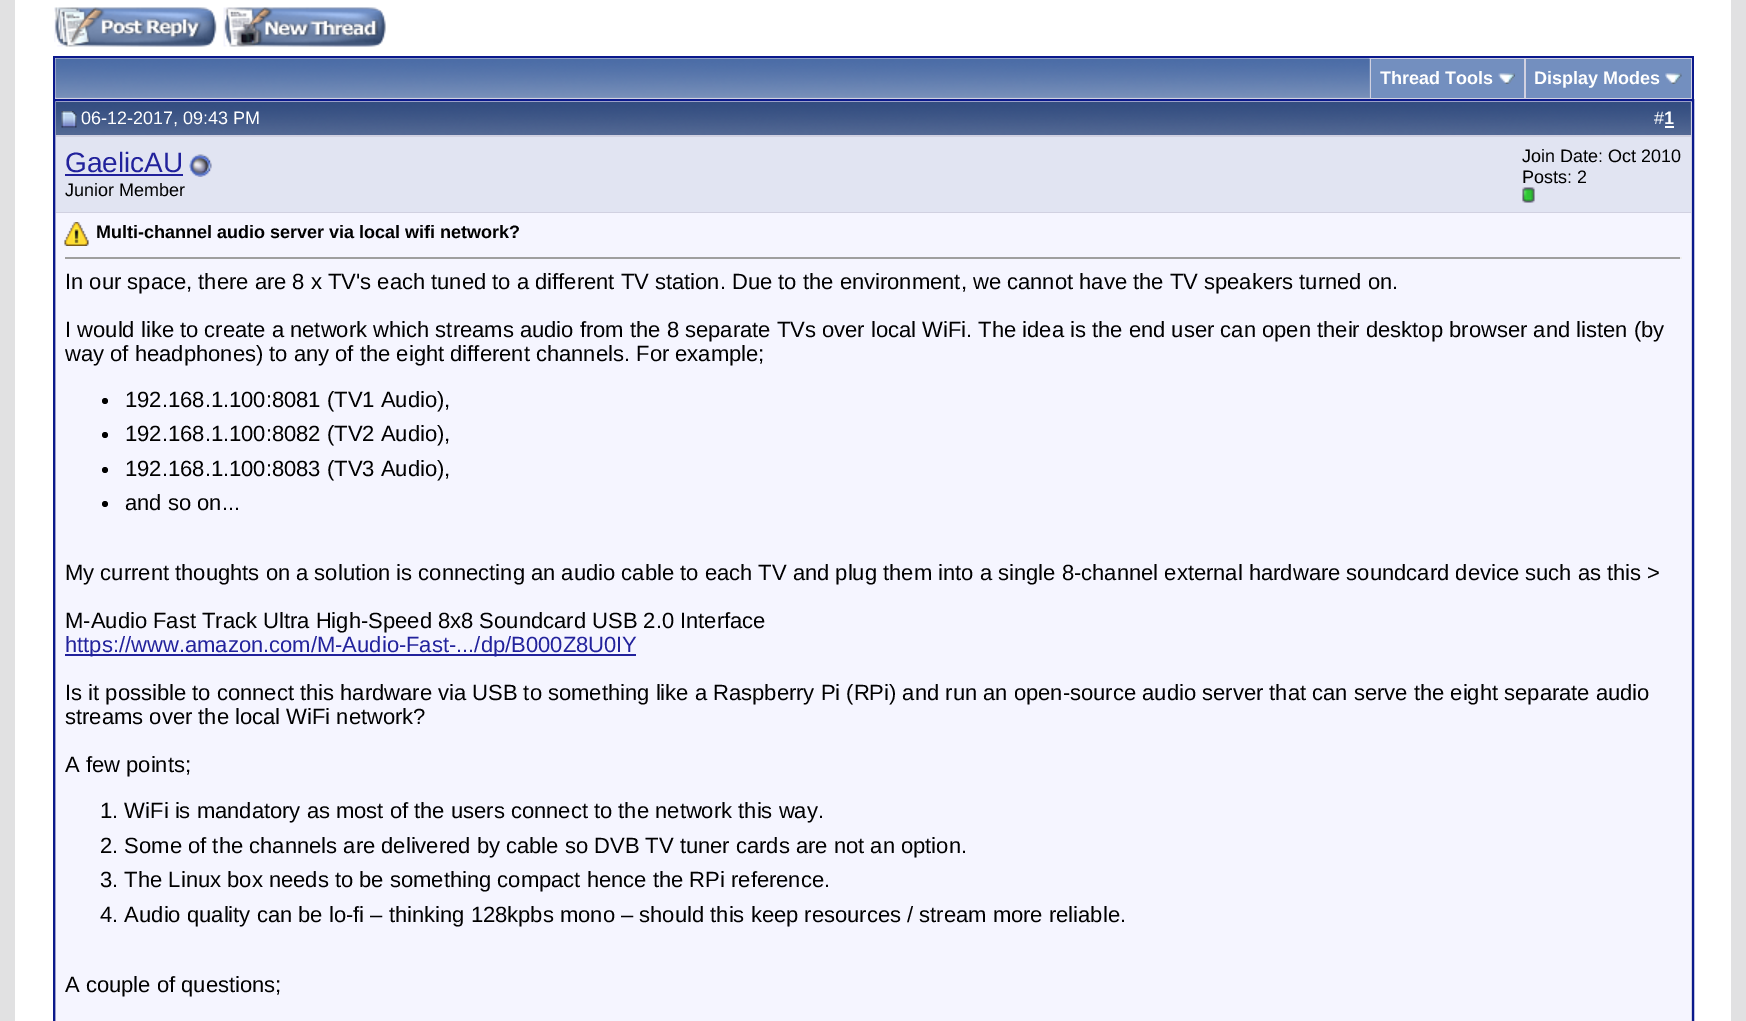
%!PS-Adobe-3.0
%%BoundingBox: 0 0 1746 1021
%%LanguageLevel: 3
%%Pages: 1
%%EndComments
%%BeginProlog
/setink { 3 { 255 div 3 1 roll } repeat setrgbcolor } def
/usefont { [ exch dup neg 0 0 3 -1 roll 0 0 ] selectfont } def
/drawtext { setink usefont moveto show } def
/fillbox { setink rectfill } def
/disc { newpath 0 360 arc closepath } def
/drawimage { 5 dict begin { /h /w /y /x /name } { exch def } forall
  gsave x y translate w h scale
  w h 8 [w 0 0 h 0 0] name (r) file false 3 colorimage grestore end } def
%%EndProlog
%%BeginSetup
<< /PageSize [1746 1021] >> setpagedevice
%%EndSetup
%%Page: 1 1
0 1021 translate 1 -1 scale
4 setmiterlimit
0 0 1746 1021 225 225 226 fillbox
15 0 1716 1021 255 255 255 fillbox
(assets/img1.rgb) 54 7 163 40 drawimage
(assets/img2.rgb) 223 7 163 40 drawimage
55 58 1637 41 209 209 225 fillbox
53 56 1641 2 11 25 140 fillbox
1692 56 2 43 11 25 140 fillbox
53 56 2 43 11 25 140 fillbox
56 59 1314 39 134 155 191 fillbox
(assets/img3.rgb) 55 58 1315 40 drawimage
1371 59 153 39 115 143 191 fillbox
(Thread Tools) 1380 84 /LiberationSans-Bold 18 255 255 255 drawtext
(assets/img4.rgb) 1498 73 17 11 drawimage
1526 59 165 39 115 143 191 fillbox
(Display Modes) 1534 84 /LiberationSans-Bold 18 255 255 255 drawtext
(assets/img5.rgb) 1665 73 17 11 drawimage
209 209 225 setink
54 100 moveto 1693 100 lineto 1693 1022 lineto 54 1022 lineto closepath gsave fill grestore
11 25 140 setink
2 setlinewidth
stroke
1690 102 1 33 92 112 153 fillbox
(assets/img6.rgb) 55 102 1636 33 drawimage
(assets/img7.rgb) 61 111 16 17 drawimage
(06-12-2017, 09:43 PM) 81 124 /LiberationSans-Regular 18 255 255 255 drawtext
(#) 1654 124 /LiberationSans-Regular 18 255 255 255 drawtext
(1) 1664 124 /LiberationSans-Bold 18 255 255 255 drawtext
1665 126 9 2 255 255 255 fillbox
56 137 1635 75 225 228 242 fillbox
(GaelicAU) 65 172 /LiberationSans-Regular 28 34 34 156 drawtext
65 174 118 2 34 34 156 fillbox
(assets/img8.rgb) 189 154 23 23 drawimage
(Junior Member) 65 196 /LiberationSans-Regular 18 0 0 0 drawtext
(Join Date: Oct 2010) 1522 162 /LiberationSans-Regular 18 0 0 0 drawtext
(Posts: 2) 1522 183 /LiberationSans-Regular 18 0 0 0 drawtext
(assets/img9.rgb) 1522 187 13 16 drawimage
56 213 1635 808 245 245 255 fillbox
(assets/img10.rgb) 64 222 25 24 drawimage
(Multi-channel audio server via local wifi network?) 96 238 /LiberationSans-Bold 18 0 0 0 drawtext
65 257 1617 2 159 159 159 fillbox
1680 257 2 2 238 238 238 fillbox
(In our space, there are 8 x TV's each tuned to a different TV station. Due to the environment, we cannot have the TV speakers turned on.) 65 289 /LiberationSans-Regular 22 0 0 0 drawtext
(I would like to create a network which streams audio from the 8 separate TVs over local WiFi. The idea is the end user can open their desktop browser and listen \(by) 65 337 /LiberationSans-Regular 22 0 0 0 drawtext
(way of headphones\) to any of the eight different channels. For example;) 65 361 /LiberationSans-Regular 22 0 0 0 drawtext
105 401 3 disc fill
(192.168.1.100:8081 \(TV1 Audio\),) 125 407 /LiberationSans-Regular 22 0 0 0 drawtext
105 435 3 disc fill
(192.168.1.100:8082 \(TV2 Audio\),) 125 441 /LiberationSans-Regular 22 0 0 0 drawtext
105 470 3 disc fill
(192.168.1.100:8083 \(TV3 Audio\),) 125 476 /LiberationSans-Regular 22 0 0 0 drawtext
105 504 3 disc fill
(and so on...) 125 510 /LiberationSans-Regular 22 0 0 0 drawtext
(My current thoughts on a solution is connecting an audio cable to each TV and plug them into a single 8-channel external hardware soundcard device such as this >) 65 580 /LiberationSans-Regular 22 0 0 0 drawtext
(M-Audio Fast Track Ultra High-Speed 8x8 Soundcard USB 2.0 Interface) 65 628 /LiberationSans-Regular 22 0 0 0 drawtext
65 654 571 2 34 34 156 fillbox
(https://www.amazon.com/M-Audio-Fast-.../dp/B000Z8U0IY) 65 652 /LiberationSans-Regular 22 34 34 156 drawtext
(Is it possible to connect this hardware via USB to something like a Raspberry Pi \(RPi\) and run an open-source audio server that can serve the eight separate audio) 65 700 /LiberationSans-Regular 22 0 0 0 drawtext
(streams over the local WiFi network?) 65 724 /LiberationSans-Regular 22 0 0 0 drawtext
(A few points;) 65 772 /LiberationSans-Regular 22 0 0 0 drawtext
(1. WiFi is mandatory as most of the users connect to the network this way.) 100 818 /LiberationSans-Regular 22 0 0 0 drawtext
(2. Some of the channels are delivered by cable so DVB TV tuner cards are not an option.) 100 853 /LiberationSans-Regular 22 0 0 0 drawtext
(3. The Linux box needs to be something compact hence the RPi reference.) 100 887 /LiberationSans-Regular 22 0 0 0 drawtext
(4. Audio quality can be lo-fi – thinking 128kpbs mono – should this keep resources / stream more reliable.) 100 922 /LiberationSans-Regular 22 0 0 0 drawtext
(A couple of questions;) 65 992 /LiberationSans-Regular 22 0 0 0 drawtext
showpage
%%EOF
